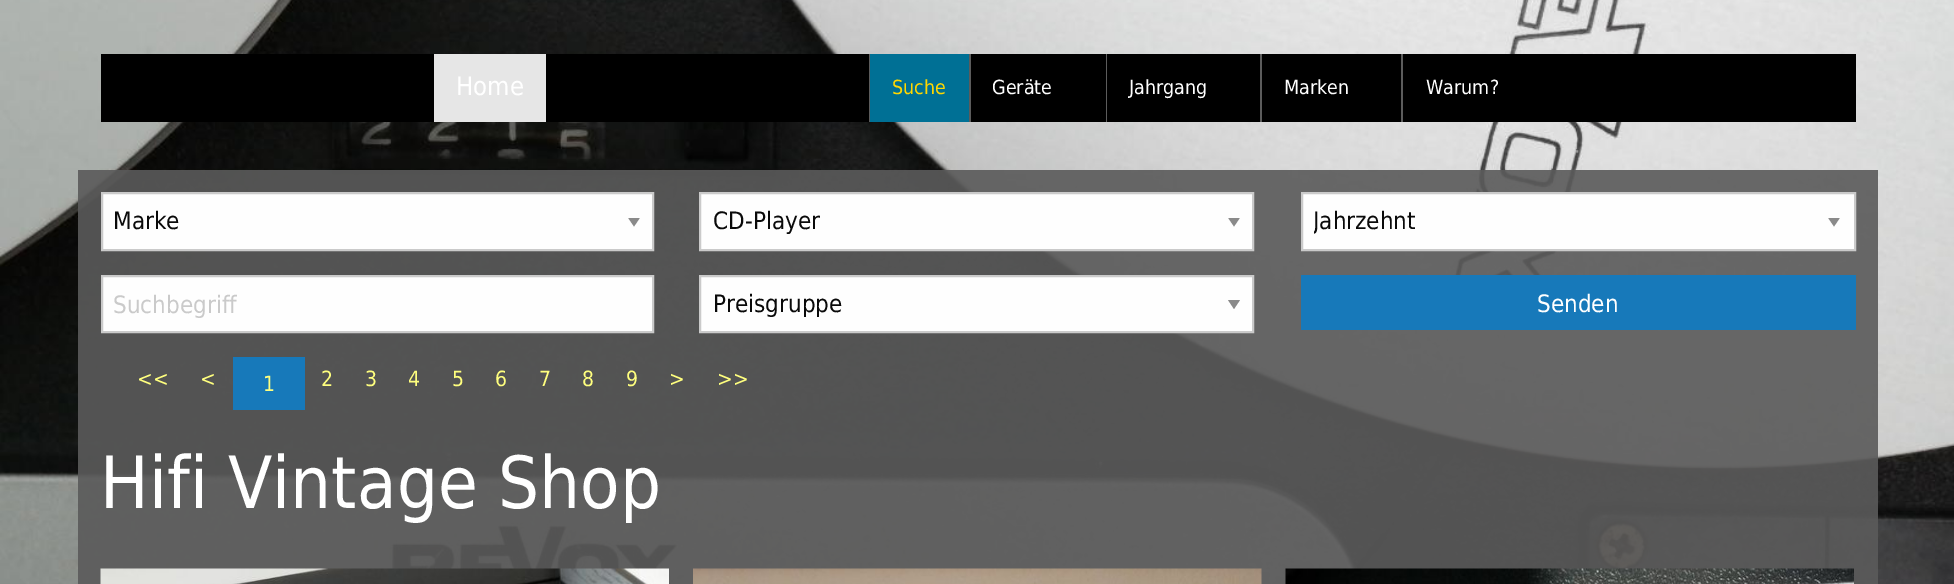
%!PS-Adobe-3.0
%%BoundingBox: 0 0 1954 584
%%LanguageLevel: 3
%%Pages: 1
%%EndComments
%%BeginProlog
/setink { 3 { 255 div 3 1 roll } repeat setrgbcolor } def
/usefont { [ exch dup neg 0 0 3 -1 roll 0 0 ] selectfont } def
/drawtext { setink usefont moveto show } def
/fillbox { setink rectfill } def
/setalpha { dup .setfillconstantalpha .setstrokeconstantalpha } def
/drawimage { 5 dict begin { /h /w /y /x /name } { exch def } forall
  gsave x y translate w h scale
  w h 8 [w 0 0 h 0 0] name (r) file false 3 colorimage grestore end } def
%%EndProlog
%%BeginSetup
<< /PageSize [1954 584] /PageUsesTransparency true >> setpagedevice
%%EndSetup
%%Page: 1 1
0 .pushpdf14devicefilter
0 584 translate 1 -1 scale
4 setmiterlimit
0 0 1954 584 255 255 255 fillbox
(assets/img1.rgb) 0 0 1954 584 drawimage
101 54 1755 68 0 0 0 fillbox
434 54 112 68 230 230 230 fillbox
(Home) 456 95 /DejaVuSans-Regular 25.5 255 255 255 drawtext
869 54 1 68 92 92 92 fillbox
870 54 99 68 0 112 149 fillbox
(Suche) 892 94 /DejaVuSans-Regular 19.5 255 215 0 drawtext
969 54 2 68 92 92 92 fillbox
(Geräte) 992 94 /DejaVuSans-Regular 19.5 255 255 255 drawtext
1106 54 1 68 92 92 92 fillbox
(Jahrgang) 1129 94 /DejaVuSans-Regular 19.5 255 255 255 drawtext
1260 54 2 68 92 92 92 fillbox
(Marken) 1284 94 /DejaVuSans-Regular 19.5 255 255 255 drawtext
1401 54 2 68 92 92 92 fillbox
(Warum?) 1426 94 /DejaVuSans-Regular 19.5 255 255 255 drawtext
0.9 setalpha
78 170 1800 414 90 90 90 fillbox
1 setalpha
103 194 549 55 254 254 254 fillbox
gsave
627 218 14 9 rectclip
138 138 138 setink
628 217.5 moveto 640 217.5 lineto 634 226.5 lineto closepath fill
grestore
202 202 202 setink
2 setlinewidth
102 193 551 57 rectstroke
(Marke) 113 229 /DejaVuSans-Regular 24 10 10 10 drawtext
701 194 551 55 254 254 254 fillbox
gsave
1227 218 14 9 rectclip
138 138 138 setink
1228 217.5 moveto 1240 217.5 lineto 1234 226.5 lineto closepath fill
grestore
202 202 202 setink
700 193 553 57 rectstroke
(CD-Player) 713 229 /DejaVuSans-Regular 24 10 10 10 drawtext
1303 194 551 55 254 254 254 fillbox
gsave
1827 218 14 9 rectclip
138 138 138 setink
1828 217.5 moveto 1840 217.5 lineto 1834 226.5 lineto closepath fill
grestore
202 202 202 setink
1302 193 553 57 rectstroke
gsave
1314 204 504 36 rectclip
(Jahrzehnt) 1313 229 /DejaVuSans-Regular 24 10 10 10 drawtext
grestore
254 254 254 setink
102 276 moveto 653 276 lineto 653 332 lineto 102 332 lineto closepath gsave fill grestore
202 202 202 setink
stroke
(Suchbegriff) 113 313 /DejaVuSans-Regular 24 202 202 202 drawtext
701 277 551 54 254 254 254 fillbox
138 138 138 setink
1228 300 moveto 1240 300 lineto 1234 309 lineto closepath fill
202 202 202 setink
700 276 553 56 rectstroke
(Preisgruppe) 713 312 /DejaVuSans-Regular 24 10 10 10 drawtext
1301 275 555 55 23 121 186 fillbox
(Senden) 1537 312 /DejaVuSans-Regular 24 255 255 255 drawtext
(<<) 137 386 /DejaVuSans-Regular 21 255 255 126 drawtext
(<) 200 386 /DejaVuSans-Regular 21 255 255 126 drawtext
233 357 72 53 23 121 186 fillbox
(1) 263 391 /DejaVuSans-Regular 21 255 255 126 drawtext
(2) 321 386 /DejaVuSans-Regular 21 255 255 126 drawtext
(3) 365 386 /DejaVuSans-Regular 21 255 255 126 drawtext
(4) 408 386 /DejaVuSans-Regular 21 255 255 126 drawtext
(5) 452 386 /DejaVuSans-Regular 21 255 255 126 drawtext
(6) 495 386 /DejaVuSans-Regular 21 255 255 126 drawtext
(7) 539 386 /DejaVuSans-Regular 21 255 255 126 drawtext
(8) 582 386 /DejaVuSans-Regular 21 255 255 126 drawtext
(9) 626 386 /DejaVuSans-Regular 21 255 255 126 drawtext
(>) 669 386 /DejaVuSans-Regular 21 255 255 126 drawtext
(>>) 717 386 /DejaVuSans-Regular 21 255 255 126 drawtext
(Hifi Vintage Shop) 100 508 /DejaVuSans-Regular 72 255 255 255 drawtext
(assets/img2.rgb) 100 568 569 16 drawimage
(assets/img3.rgb) 693 568 569 16 drawimage
(assets/img4.rgb) 1285 568 569 16 drawimage
.poppdf14devicefilter showpage
%%EOF
